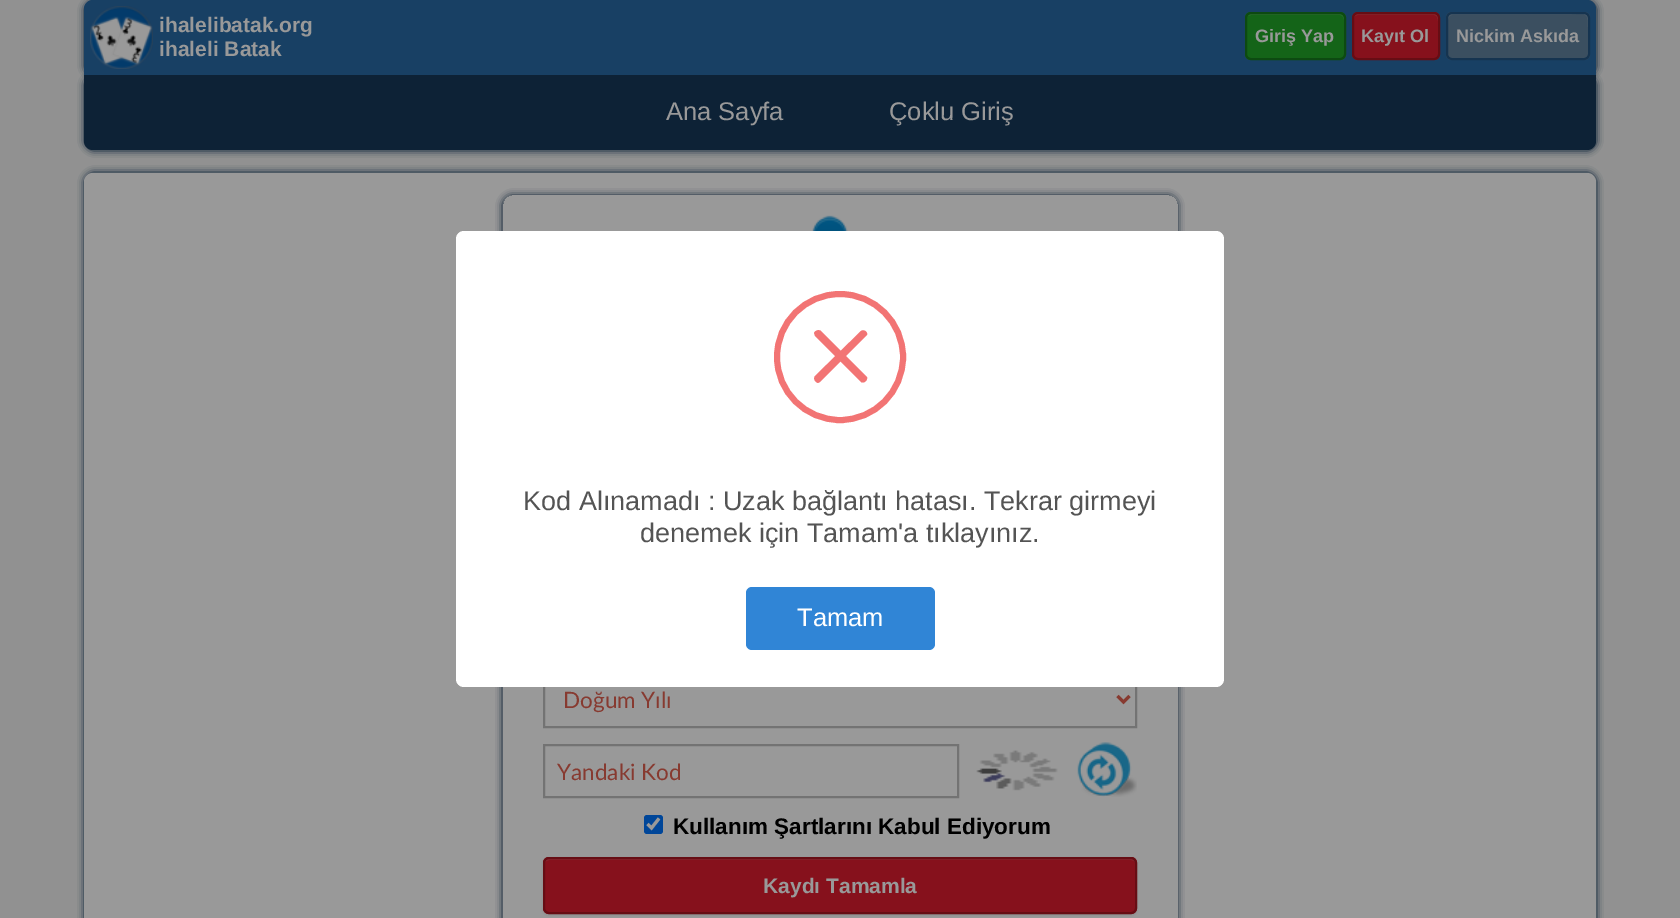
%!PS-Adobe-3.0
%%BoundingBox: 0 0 1680 918
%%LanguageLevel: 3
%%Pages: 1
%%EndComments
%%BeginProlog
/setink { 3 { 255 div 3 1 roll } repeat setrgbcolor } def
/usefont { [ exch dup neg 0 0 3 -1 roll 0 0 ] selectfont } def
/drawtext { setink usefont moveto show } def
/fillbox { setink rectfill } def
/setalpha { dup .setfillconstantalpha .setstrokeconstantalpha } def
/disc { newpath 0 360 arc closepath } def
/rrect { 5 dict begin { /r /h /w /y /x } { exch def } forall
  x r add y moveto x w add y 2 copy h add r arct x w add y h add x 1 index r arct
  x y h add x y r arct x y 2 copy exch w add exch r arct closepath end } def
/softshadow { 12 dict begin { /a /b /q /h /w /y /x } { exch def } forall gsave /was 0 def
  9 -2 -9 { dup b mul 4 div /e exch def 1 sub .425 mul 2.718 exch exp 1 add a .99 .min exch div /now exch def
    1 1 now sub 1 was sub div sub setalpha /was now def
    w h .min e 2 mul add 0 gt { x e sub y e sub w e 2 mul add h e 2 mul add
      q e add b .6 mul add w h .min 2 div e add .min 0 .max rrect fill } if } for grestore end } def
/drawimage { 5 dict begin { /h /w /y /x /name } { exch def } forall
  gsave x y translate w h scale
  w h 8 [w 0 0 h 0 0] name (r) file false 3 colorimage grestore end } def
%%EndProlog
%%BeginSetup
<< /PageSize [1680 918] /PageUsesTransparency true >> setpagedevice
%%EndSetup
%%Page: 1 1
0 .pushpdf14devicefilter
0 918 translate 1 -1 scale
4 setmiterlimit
0 0 1680 918 145 145 145 fillbox
13 34 54 setink
86 77 1509 72 8 4 1 softshadow
86 77 1509 72 8 4 1 softshadow
84 75 moveto 1596 75 lineto 1596 141 lineto 1596 146 1592 150 1587 150 curveto 93 150 lineto 88 150 84 146 84 141 curveto closepath fill
86 2 1509 72 8 4 1 softshadow
86 2 1509 72 8 4 1 softshadow
24 64 100 setink
93 0 moveto 1587 0 lineto 1592 0 1596 4 1596 9 curveto 1596 75 lineto 84 75 lineto 84 9 lineto 84 4 88 0 93 0 curveto closepath fill
(assets/img1.rgb) 90 6 63 63 drawimage
(ihalelibatak.org) 159 32 /LiberationSans-Bold 21 153 153 153 drawtext
(ihaleli Batak) 159 56 /LiberationSans-Bold 21 153 153 153 drawtext
20 100 24 setink
1245 12 101 48 6 rrect fill
40 108 43 setink
1251 15 moveto 1340 15 lineto 1342 15 1344 17 1344 20 curveto 1344 19 lineto 1344 16 1342 14 1339 14 curveto 1252 14 lineto 1250 14 1249 15 1248 16 curveto closepath fill
13 74 17 setink
2 setlinewidth
1246 13 99 46 5 rrect stroke
(Giriş Yap) 1255 42 /LiberationSans-Bold 18 153 153 153 drawtext
134 17 28 setink
1352 12 88 48 6 rrect fill
137 37 46 setink
1358 15 moveto 1434 15 lineto 1439 15 1438 23 1438 26 curveto 1438 57 lineto 1439 56 1439 55 1439 54 curveto 1439 19 lineto 1439 16 1437 14 1434 14 curveto 1358 14 lineto 1355 14 1353 16 1353 19 curveto 1353 20 lineto 1353 17 1355 15 1358 15 curveto closepath fill
103 13 20 setink
1353 13 86 46 5 rrect stroke
(Kayıt Ol) 1361 42 /LiberationSans-Bold 18 153 153 153 drawtext
59 79 96 setink
1446 12 144 48 6 rrect fill
73 90 104 setink
1452 15 moveto 1562 15 lineto 1589 15 1588 9 1588 32 curveto 1588 57 lineto 1589 56 1589 55 1589 54 curveto 1589 19 lineto 1589 16 1587 14 1584 14 curveto 1453 14 lineto 1450 14 1448 16 1448 19 curveto 1448 20 lineto 1448 17 1450 15 1452 15 curveto closepath fill
22 52 80 setink
1447 13 142 46 5 rrect stroke
(Nickim Askıda) 1456 42 /LiberationSans-Bold 18 153 153 153 drawtext
(Ana Sayfa) 666 120 /LiberationSans-Regular 25.5 153 153 153 drawtext
(Çoklu Giriş) 889 120 /LiberationSans-Regular 25.5 153 153 153 drawtext
13 34 54 setink
86 174 1509 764 8 4 1 softshadow
86 174 1509 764 8 4 1 softshadow
153 153 153 setink
84 173 1512 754 9 rrect fill
gsave
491 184 moveto 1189 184 lineto 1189 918 lineto 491 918 lineto closepath 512 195 moveto 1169 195 lineto 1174 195 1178 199 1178 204 curveto 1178 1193 lineto 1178 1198 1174 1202 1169 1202 curveto 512 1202 lineto 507 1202 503 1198 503 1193 curveto 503 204 lineto 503 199 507 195 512 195 curveto closepath eoclip newpath
13 34 54 setink
504 197 672 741 8 4 1 softshadow
504 197 672 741 8 4 1 softshadow
grestore
0.31 setalpha
11 setlinewidth
508.5 200.5 664 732 3.5 rrect stroke
1 setalpha
(assets/img2.rgb) 812 215 36 16 drawimage
115 115 115 setink
2 setlinewidth
544 672 592 55 rectstroke
135 58 48 setink
3 setlinewidth
1117.5 696 moveto 1123.5 702 lineto 1129.5 696 lineto stroke
(Doğum Yılı) 563 708 /Lato-Regular 22.5 135 58 48 drawtext
115 115 115 setink
2 setlinewidth
544 745 414 52 rectstroke
(Yandaki Kod) 557 780 /Lato-Regular 22.5 135 58 48 drawtext
(assets/img3.rgb) 976 750 82 41 drawimage
(assets/img4.rgb) 1077 742 60 55 drawimage
0 70 153 setink
644 815 19 19 3 rrect fill
153 153 153 setink
3.1 setlinewidth
647.5 824 moveto 651.5 828 lineto 659 818.5 lineto stroke
(Kullanım Şartlarını Kabul Ediyorum) 673 834 /LiberationSans-Bold 22.5 0 0 0 drawtext
543 858 594 57 6 1 0.07 softshadow
134 17 28 setink
543 857 594 57 6 rrect fill
137 37 46 setink
549 860 moveto 1131 860 lineto 1133 860 1136 862 1136 864 curveto 1136 863 lineto 1136 860 1134 858 1131 858 curveto 550 858 lineto 548 858 546 860 545 862 curveto 546 861 548 860 549 860 curveto closepath fill
103 13 20 setink
2 setlinewidth
544 858 592 55 5 rrect stroke
(Kaydı Tamamla) 763 893 /LiberationSans-Bold 21 153 153 153 drawtext
255 255 255 setink
456 231 768 456 8 rrect fill
242 116 116 setink
6 setlinewidth
840 357 63 disc stroke
821 331 moveto 867 377 lineto 868 380 864 384 861 382 curveto 815 336 lineto 814 333 lineto 815 331 818 329 821 331 curveto closepath fill
815 376 moveto 861 331 lineto 864 329 868 332 867 335 curveto 820 382 lineto 818 383 lineto 815 382 813 379 815 376 curveto closepath fill
(Kod Alınamadı : Uzak bağlantı hatası. Tekrar girmeyi) 523 510 /LiberationSans-Regular 27 84 84 84 drawtext
(denemek için Tamam'a tıklayınız.) 640 542 /LiberationSans-Regular 27 84 84 84 drawtext
48 133 214 setink
746 587 189 63 6 rrect fill
(Tamam) 797 626 /LiberationSans-Regular 25.5 255 255 255 drawtext
.poppdf14devicefilter showpage
%%EOF
